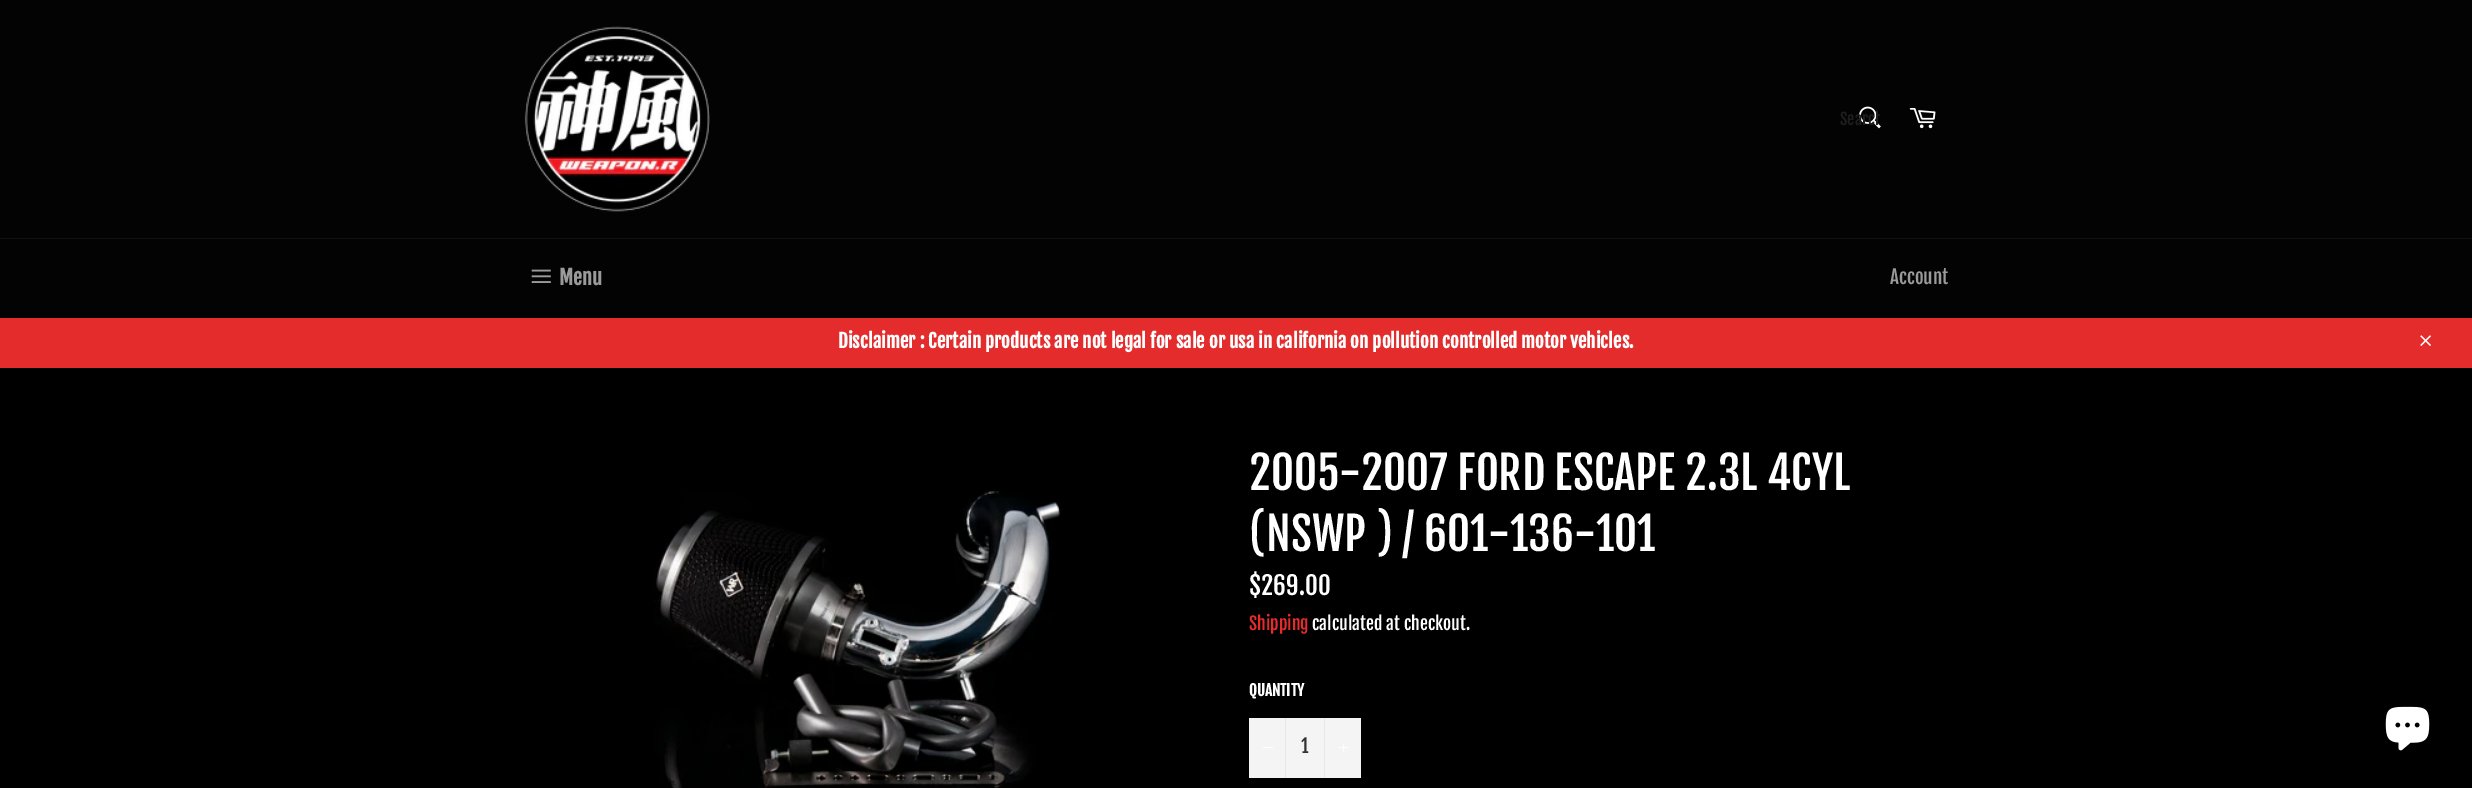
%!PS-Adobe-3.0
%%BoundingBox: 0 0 2472 788
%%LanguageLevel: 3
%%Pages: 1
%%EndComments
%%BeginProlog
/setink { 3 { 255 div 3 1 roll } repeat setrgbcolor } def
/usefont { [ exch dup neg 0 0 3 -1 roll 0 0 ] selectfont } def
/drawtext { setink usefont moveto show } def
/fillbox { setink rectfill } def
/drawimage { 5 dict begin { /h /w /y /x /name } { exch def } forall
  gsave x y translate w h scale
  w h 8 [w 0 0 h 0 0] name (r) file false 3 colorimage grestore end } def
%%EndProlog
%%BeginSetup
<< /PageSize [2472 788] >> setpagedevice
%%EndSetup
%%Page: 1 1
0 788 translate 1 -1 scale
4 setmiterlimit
0 0 2472 788 0 0 0 fillbox
0 0 2472 238 3 3 3 fillbox
(assets/img1.rgb) 524 26 186 186 drawimage
(assets/img2.rgb) 1859 106 22 23 drawimage
gsave
1840 109 40 20 rectclip
(Search) 1840 125 /FjallaOne-Regular 16 30 30 30 drawtext
grestore
(assets/img3.rgb) 1909 108 27 21 drawimage
0 239 2472 79 3 3 3 fillbox
0 238 2472 1 16 16 16 fillbox
(assets/img4.rgb) 531 269 20 14 drawimage
(Menu) 559 285 /FjallaOne-Bold 20 154 154 154 drawtext
(Account) 1890 284 /FjallaOne-Regular 18.75 154 154 154 drawtext
0 318 2472 50 227 44 43 fillbox
(Disclaimer : Certain products are not legal for sale or usa in california on pollution controlled motor vehicles.) 838 348 /FjallaOne-Bold 18.75 255 255 255 drawtext
(assets/img5.rgb) 2420 335 11 11 drawimage
(assets/img6.rgb) 654 490 407 298 drawimage
(2005-2007 FORD ESCAPE 2.3L 4CYL) 1249 490 /FjallaOne-Regular 45 255 255 255 drawtext
(\(NSWP \) / 601-136-101) 1249 551 /FjallaOne-Regular 45 255 255 255 drawtext
($269.00) 1249 595 /FjallaOne-Regular 25 255 255 255 drawtext
(Shipping) 1249 630 /FjallaOne-Regular 17.5 227 44 43 drawtext
(calculated at checkout.) 1312 630 /FjallaOne-Regular 17.5 255 255 255 drawtext
(QUANTITY) 1249 696 /FjallaOne-Bold 15 255 255 255 drawtext
1249 718 112 60 244 244 244 fillbox
1285 718 1 60 231 231 231 fillbox
1263 747 10 1 255 255 255 fillbox
(1) 1301 753 /FjallaOne-Regular 18.75 51 51 51 drawtext
1324 718 1 60 231 231 231 fillbox
(assets/img7.rgb) 1339 743 10 9 drawimage
(assets/img8.rgb) 2385 706 45 45 drawimage
showpage
%%EOF
